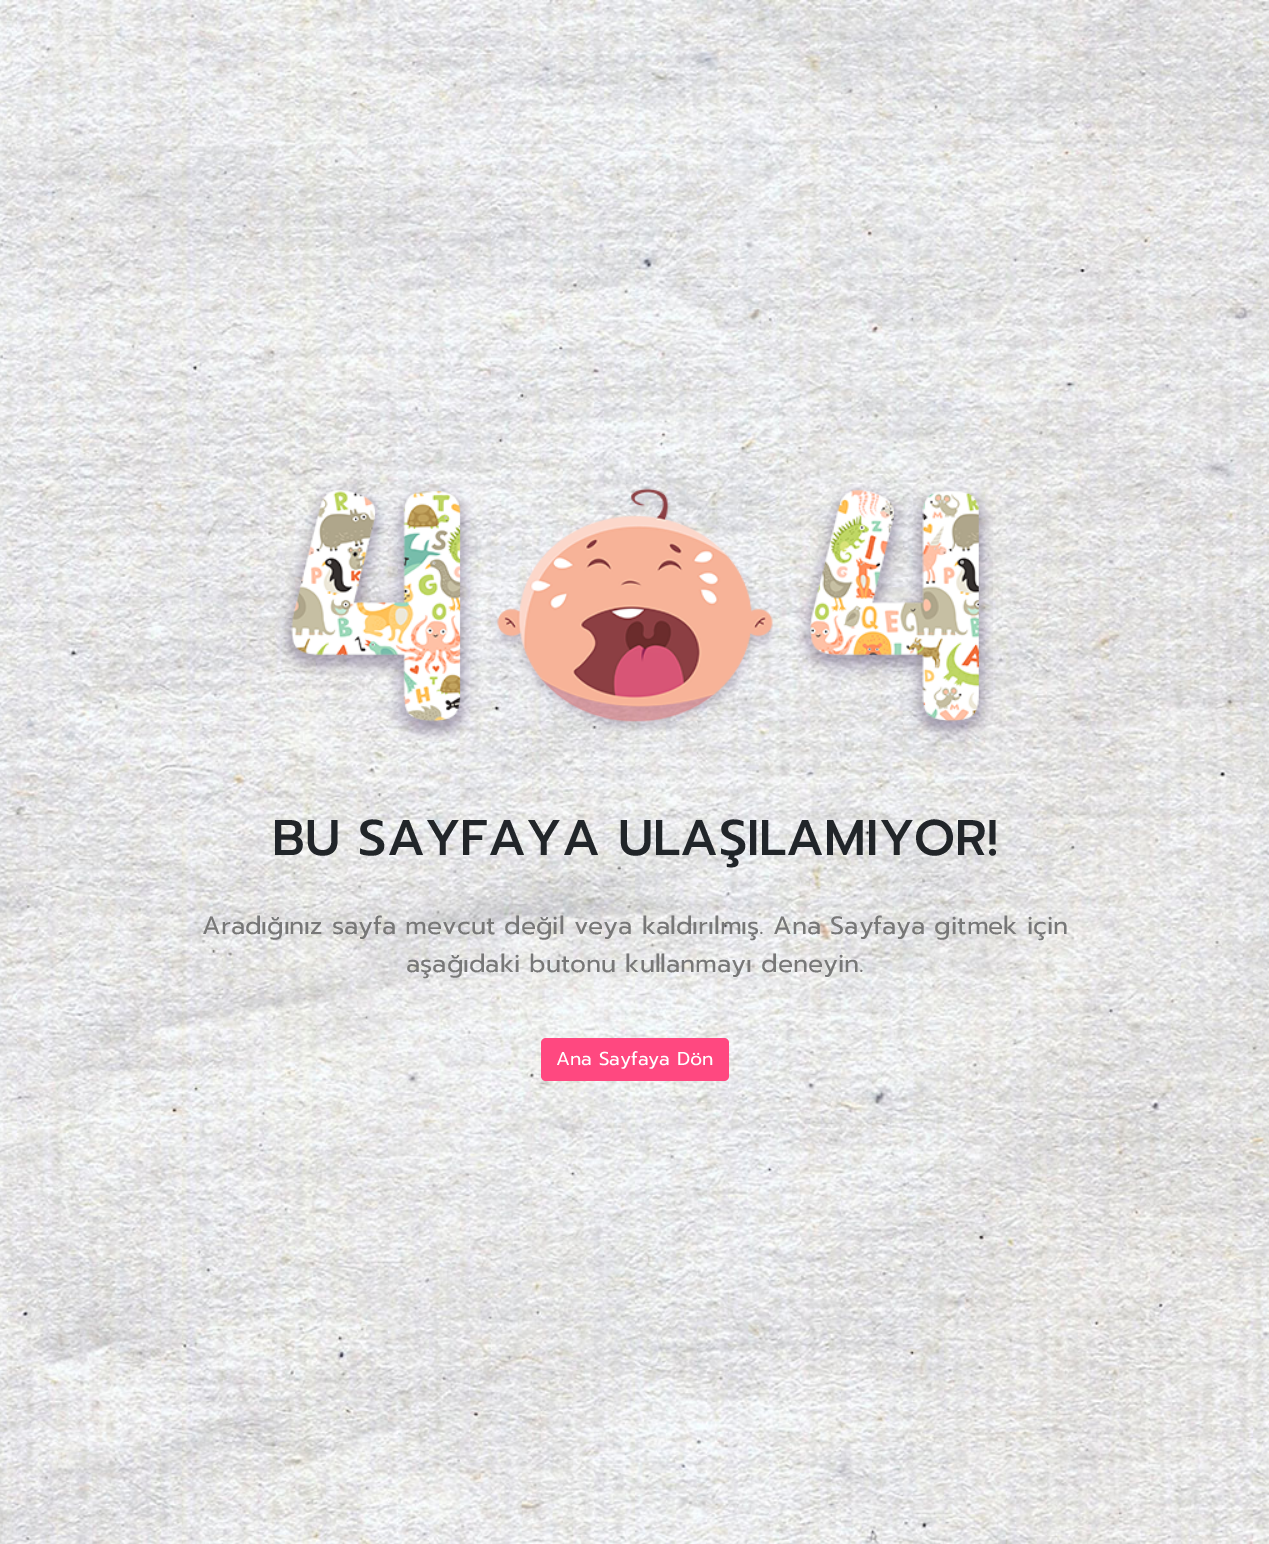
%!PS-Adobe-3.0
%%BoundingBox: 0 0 1269 1544
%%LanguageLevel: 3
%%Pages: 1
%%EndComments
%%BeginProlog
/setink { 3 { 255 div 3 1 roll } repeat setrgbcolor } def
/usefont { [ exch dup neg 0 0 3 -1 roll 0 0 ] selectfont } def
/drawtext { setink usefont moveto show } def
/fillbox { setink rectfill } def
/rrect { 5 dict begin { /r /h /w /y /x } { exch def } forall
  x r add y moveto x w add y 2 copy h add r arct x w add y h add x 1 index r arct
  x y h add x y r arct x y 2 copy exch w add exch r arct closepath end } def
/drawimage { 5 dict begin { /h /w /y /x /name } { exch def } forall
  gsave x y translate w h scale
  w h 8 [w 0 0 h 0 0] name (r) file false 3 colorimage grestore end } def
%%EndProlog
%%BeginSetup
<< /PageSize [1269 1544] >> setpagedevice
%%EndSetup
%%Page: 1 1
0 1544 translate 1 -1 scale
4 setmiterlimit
0 0 1269 1544 255 255 255 fillbox
(assets/img1.rgb) 0 0 1269 1544 drawimage
(assets/img2.rgb) 278 484 715 257 drawimage
(BU SAYFAYA ULAŞILAMIYOR!) 272 855 /Prompt-Medium 50 33 37 41 drawtext
(Aradığınız sayfa mevcut değil veya kaldırılmış. Ana Sayfaya gitmek için) 202 934 /Prompt-Regular 25 119 119 119 drawtext
(aşağıdaki butonu kullanmayı deneyin.) 406 972 /Prompt-Regular 25 119 119 119 drawtext
255 72 128 setink
541 1038 188 43 5 rrect fill
(Ana Sayfaya Dön) 556 1065 /Prompt-Regular 18.75 255 255 255 drawtext
showpage
%%EOF
